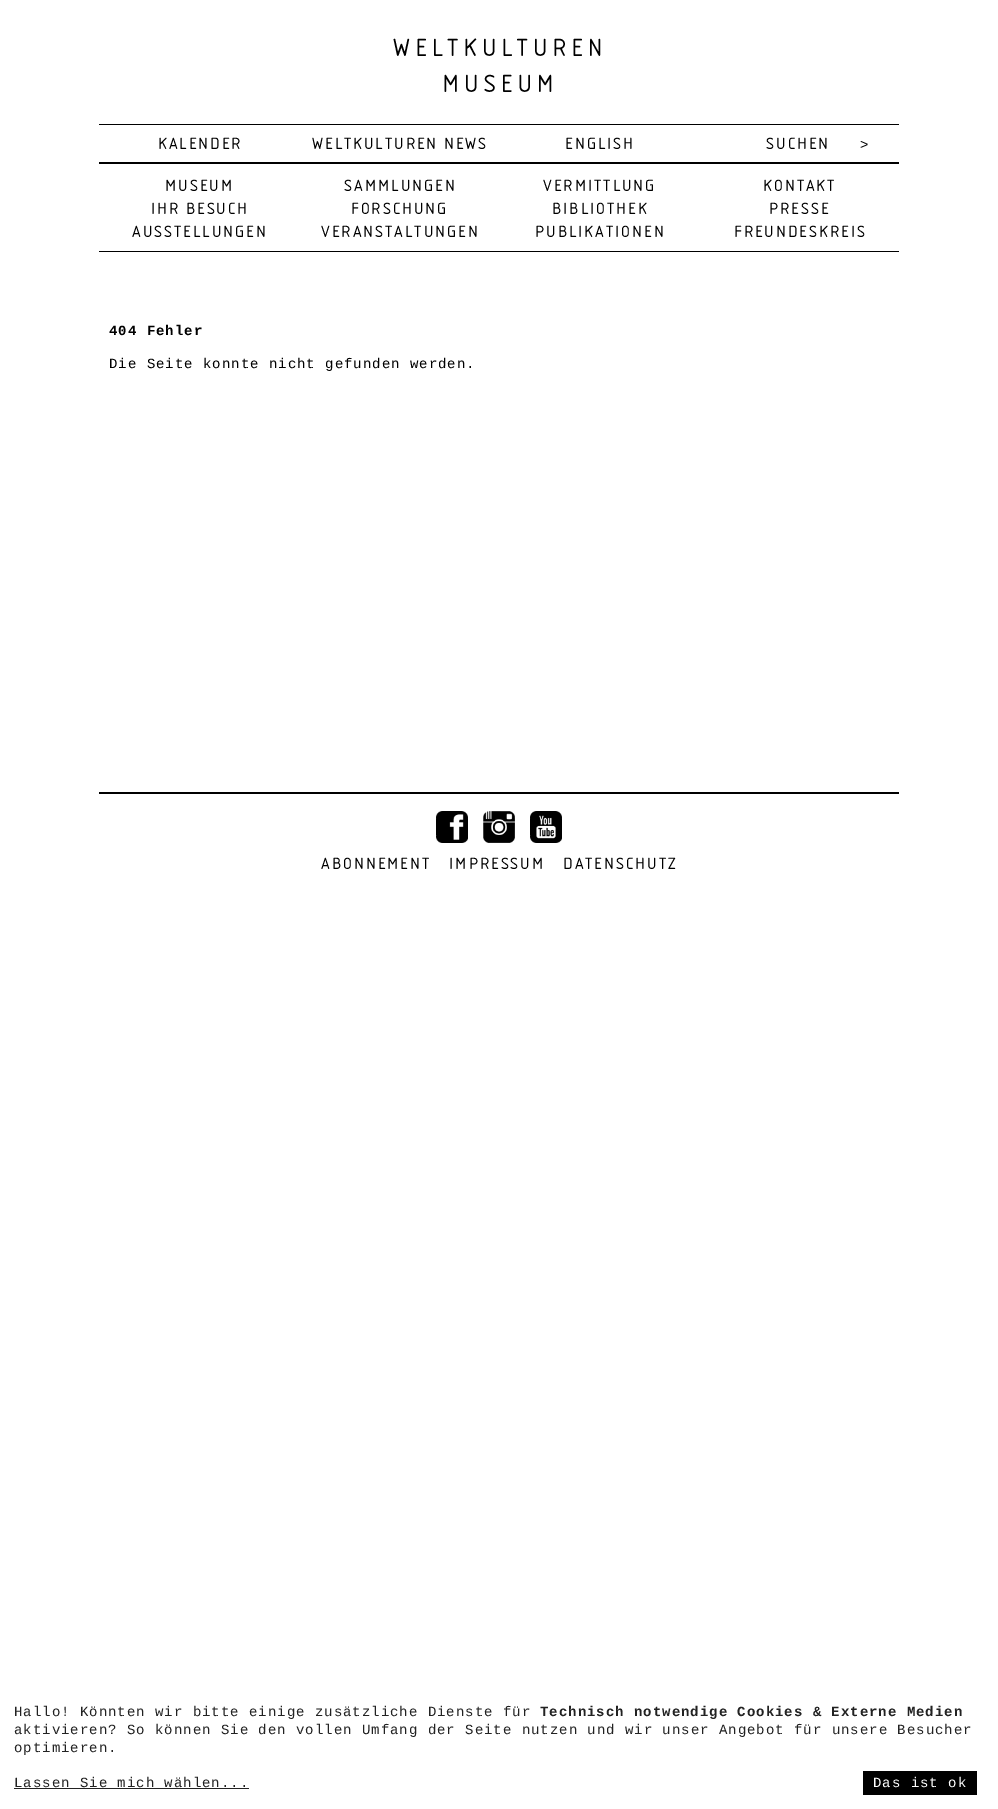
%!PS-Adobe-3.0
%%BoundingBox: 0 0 998 1809
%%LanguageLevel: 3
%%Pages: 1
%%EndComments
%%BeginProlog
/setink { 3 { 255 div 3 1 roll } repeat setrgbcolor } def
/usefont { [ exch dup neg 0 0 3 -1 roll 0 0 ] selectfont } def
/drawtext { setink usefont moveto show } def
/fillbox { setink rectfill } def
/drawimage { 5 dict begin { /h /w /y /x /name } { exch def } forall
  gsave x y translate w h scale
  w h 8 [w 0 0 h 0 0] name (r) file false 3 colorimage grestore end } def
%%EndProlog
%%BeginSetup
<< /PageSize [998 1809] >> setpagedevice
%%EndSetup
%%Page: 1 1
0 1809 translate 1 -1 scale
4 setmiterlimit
0 0 998 1809 255 255 255 fillbox
(assets/img1.rgb) 393 38 208 54 drawimage
99 124 800 1 0 0 0 fillbox
/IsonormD-Regular 17 usefont
158 149 moveto 2 0 (KALENDER) ashow
312 149 moveto 2 0 (WELTKULTUREN NEWS) ashow
565 149 moveto 2 0 (ENGLISH) ashow
766 149 moveto 2 0 (SUCHEN) ashow
(>) 860 149 /LiberationMono-Regular 14 0 0 0 drawtext
99 162 800 2 0 0 0 fillbox
99 251 800 1 0 0 0 fillbox
/IsonormD-Regular 17 usefont
165 191 moveto 2 0 (MUSEUM) ashow
344 191 moveto 2 0 (SAMMLUNGEN) ashow
543 191 moveto 2 0 (VERMITTLUNG) ashow
763 191 moveto 2 0 (KONTAKT) ashow
151 214 moveto 2 0 (IHR BESUCH) ashow
351 214 moveto 2 0 (FORSCHUNG) ashow
552 214 moveto 2 0 (BIBLIOTHEK) ashow
769 214 moveto 2 0 (PRESSE) ashow
132 237 moveto 2 0 (AUSSTELLUNGEN) ashow
321 237 moveto 2 0 (VERANSTALTUNGEN) ashow
535 237 moveto 2 0 (PUBLIKATIONEN) ashow
734 237 moveto 2 0 (FREUNDESKREIS) ashow
/LiberationMono-Bold 14 usefont
109 335 moveto 1 0 (404 Fehler) ashow
/LiberationMono-Regular 14 usefont
109 368 moveto 1 0 (Die Seite konnte nicht gefunden werden.) ashow
99 792 800 2 0 0 0 fillbox
(assets/img2.rgb) 436 811 32 32 drawimage
(assets/img3.rgb) 483 811 32 32 drawimage
(assets/img4.rgb) 530 811 32 32 drawimage
/IsonormD-Regular 17 usefont
321 869 moveto 2 0 (ABONNEMENT) ashow
449 869 moveto 2 0 (IMPRESSUM) ashow
563 869 moveto 2 0 (DATENSCHUTZ) ashow
/LiberationMono-Regular 14 usefont
34 34 34 setink
14 1716 moveto 1 0 (Hallo! Könnten wir bitte einige zusätzliche Dienste für) ashow
/LiberationMono-Bold 14 usefont
540 1716 moveto 1 0 (Technisch notwendige Cookies & Externe Medien) ashow
/LiberationMono-Regular 14 usefont
14 1734 moveto 1 0 (aktivieren? So können Sie den vollen Umfang der Seite nutzen und wir unser Angebot für unsere Besucher) ashow
14 1752 moveto 1 0 (optimieren.) ashow
14 1787 moveto 1 0 (Lassen Sie mich wählen...) ashow
14 1788 235 1 34 34 34 fillbox
863 1771 114 24 0 0 0 fillbox
255 255 255 setink
873 1787 moveto 1 0 (Das ist ok) ashow
showpage
%%EOF
